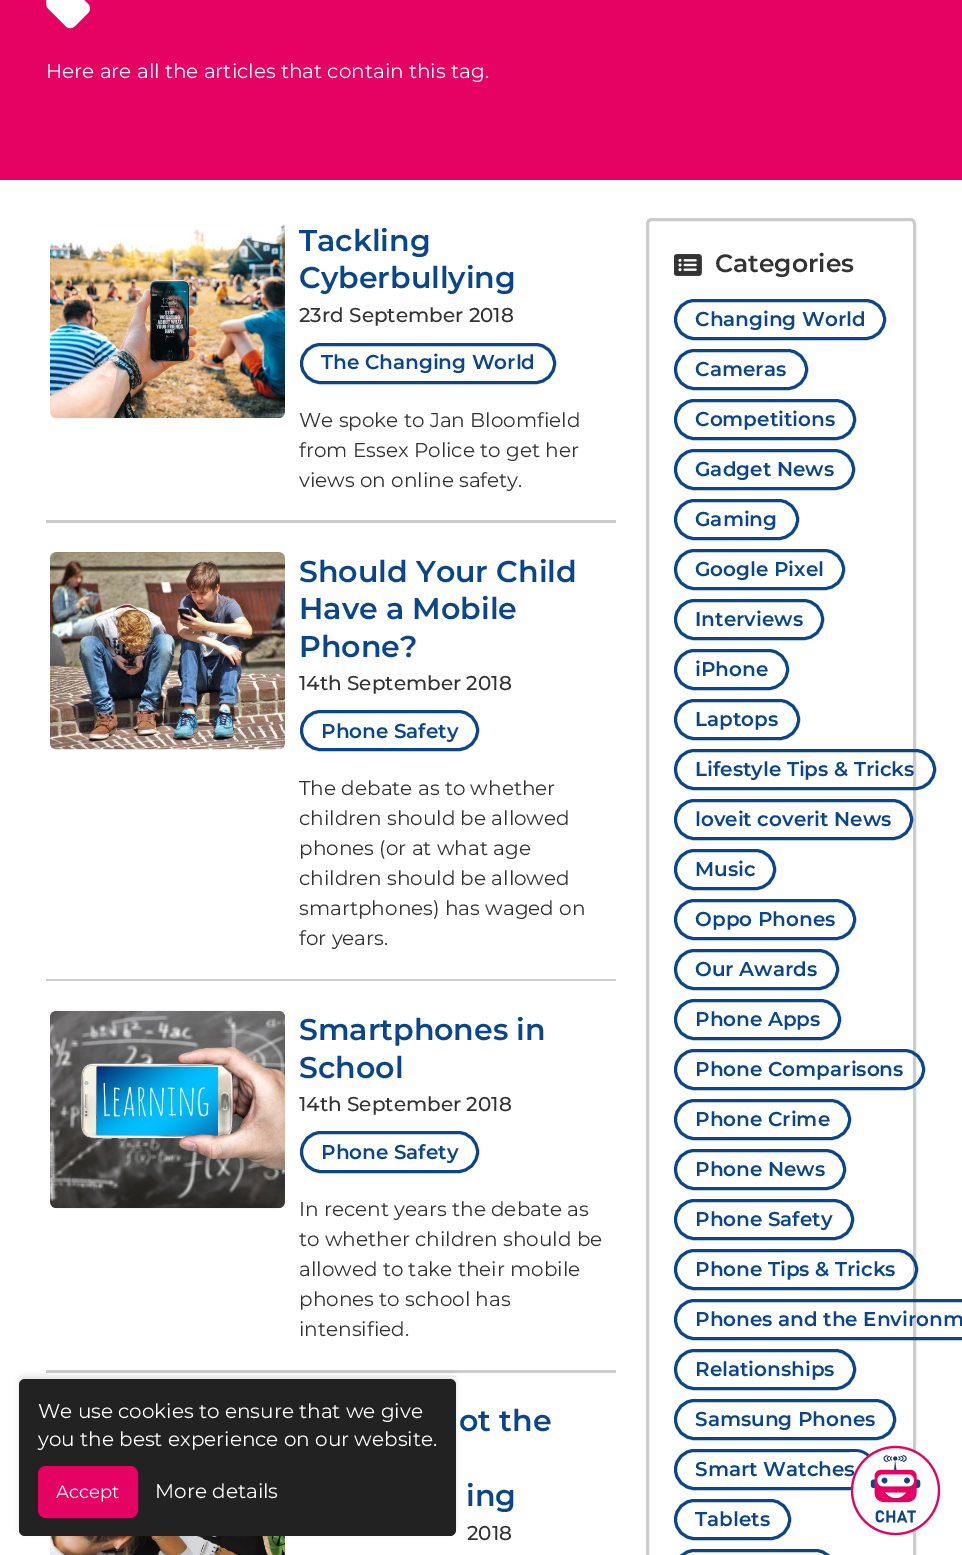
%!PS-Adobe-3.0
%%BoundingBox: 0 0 962 1555
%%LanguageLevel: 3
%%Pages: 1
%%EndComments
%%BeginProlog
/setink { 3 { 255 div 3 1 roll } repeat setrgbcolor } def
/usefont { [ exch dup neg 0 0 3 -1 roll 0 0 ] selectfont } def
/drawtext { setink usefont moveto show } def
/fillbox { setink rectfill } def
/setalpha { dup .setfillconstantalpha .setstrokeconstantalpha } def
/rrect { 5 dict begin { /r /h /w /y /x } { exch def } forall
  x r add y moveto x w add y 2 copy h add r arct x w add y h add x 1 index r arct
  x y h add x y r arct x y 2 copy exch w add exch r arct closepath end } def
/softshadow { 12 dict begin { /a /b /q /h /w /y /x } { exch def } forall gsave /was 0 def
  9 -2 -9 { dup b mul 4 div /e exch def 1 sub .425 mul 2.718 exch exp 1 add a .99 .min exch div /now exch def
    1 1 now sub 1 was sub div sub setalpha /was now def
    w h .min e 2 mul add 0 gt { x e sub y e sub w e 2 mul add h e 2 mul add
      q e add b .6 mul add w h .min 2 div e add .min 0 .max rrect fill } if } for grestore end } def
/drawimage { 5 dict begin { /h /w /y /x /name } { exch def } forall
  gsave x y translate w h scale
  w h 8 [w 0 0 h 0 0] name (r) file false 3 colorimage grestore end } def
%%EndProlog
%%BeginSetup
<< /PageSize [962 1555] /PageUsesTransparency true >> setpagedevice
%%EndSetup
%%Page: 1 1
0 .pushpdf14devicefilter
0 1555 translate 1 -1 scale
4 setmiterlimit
0 0 962 1555 255 255 255 fillbox
0 0 962 180 230 2 99 fillbox
(assets/img1.rgb) 46 0 44 29 drawimage
(Here are all the articles that contain this tag.) 46 78 /Montserrat-Regular 20 255 255 255 drawtext
46 520 570 3 204 204 204 fillbox
(assets/img2.rgb) 50 223 235 196 drawimage
(Tackling) 299 251 /Montserrat-SemiBold 30 10 70 137 drawtext
(Cyberbullying) 299 288 /Montserrat-SemiBold 30 10 70 137 drawtext
(23rd September 2018) 299 322 /Montserrat-Medium 20 51 51 51 drawtext
10 70 137 setink
3 setlinewidth
301.5 344.5 253 38 19 rrect stroke
(The Changing World) 321 369 /Montserrat-SemiBold 20 10 70 137 drawtext
(We spoke to Jan Bloomfield) 299 427 /Montserrat-Regular 20 51 51 51 drawtext
(from Essex Police to get her) 299 457 /Montserrat-Regular 20 51 51 51 drawtext
(views on online safety.) 299 487 /Montserrat-Regular 20 51 51 51 drawtext
46 979 570 2 204 204 204 fillbox
(assets/img3.rgb) 50 552 235 198 drawimage
(Should Your Child) 299 582 /Montserrat-SemiBold 30 10 70 137 drawtext
(Have a Mobile) 299 619 /Montserrat-SemiBold 30 10 70 137 drawtext
(Phone?) 299 657 /Montserrat-SemiBold 30 10 70 137 drawtext
(14th September 2018) 299 690 /Montserrat-Medium 20 51 51 51 drawtext
10 70 137 setink
301.5 711.5 176 38 19 rrect stroke
(Phone Safety) 321 738 /Montserrat-SemiBold 20 10 70 137 drawtext
(The debate as to whether) 299 795 /Montserrat-Regular 20 51 51 51 drawtext
(children should be allowed) 299 825 /Montserrat-Regular 20 51 51 51 drawtext
(phones \(or at what age) 299 855 /Montserrat-Regular 20 51 51 51 drawtext
(children should be allowed) 299 885 /Montserrat-Regular 20 51 51 51 drawtext
(smartphones\) has waged on) 299 915 /Montserrat-Regular 20 51 51 51 drawtext
(for years.) 299 945 /Montserrat-Regular 20 51 51 51 drawtext
46 1370 570 3 204 204 204 fillbox
(assets/img4.rgb) 50 1010 235 199 drawimage
(Smartphones in) 299 1040 /Montserrat-SemiBold 30 10 70 137 drawtext
(School) 299 1078 /Montserrat-SemiBold 30 10 70 137 drawtext
(14th September 2018) 299 1111 /Montserrat-Medium 20 51 51 51 drawtext
10 70 137 setink
301.5 1132.5 176 39 19.5 rrect stroke
(Phone Safety) 321 1159 /Montserrat-SemiBold 20 10 70 137 drawtext
(In recent years the debate as) 299 1216 /Montserrat-Regular 20 51 51 51 drawtext
(to whether children should be) 299 1246 /Montserrat-Regular 20 51 51 51 drawtext
(allowed to take their mobile) 299 1276 /Montserrat-Regular 20 51 51 51 drawtext
(phones to school has) 299 1306 /Montserrat-Regular 20 51 51 51 drawtext
(intensified.) 299 1336 /Montserrat-Regular 20 51 51 51 drawtext
(ot the) 459 1431 /Montserrat-SemiBold 30 10 70 137 drawtext
(ing) 466 1506 /Montserrat-SemiBold 30 10 70 137 drawtext
(2018) 467 1540 /Montserrat-Medium 20 51 51 51 drawtext
(assets/img5.rgb) 50 1536 235 19 drawimage
204 204 204 setink
647.5 219.5 267 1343 4.5 rrect stroke
(assets/img6.rgb) 674 254 28 22 drawimage
(Categories) 715 272 /Montserrat-SemiBold 25 51 51 51 drawtext
10 70 137 setink
675.5 300.5 209 38 19 rrect stroke
(Changing World) 695 326 /Montserrat-SemiBold 20 10 70 137 drawtext
675.5 350.5 131 38 19 rrect stroke
(Cameras) 695 376 /Montserrat-SemiBold 20 10 70 137 drawtext
675.5 400.5 179 38 19 rrect stroke
(Competitions) 695 426 /Montserrat-SemiBold 20 10 70 137 drawtext
675.5 450.5 178 38 19 rrect stroke
(Gadget News) 695 476 /Montserrat-SemiBold 20 10 70 137 drawtext
675.5 500.5 122 38 19 rrect stroke
(Gaming) 695 526 /Montserrat-SemiBold 20 10 70 137 drawtext
675.5 550.5 168 38 19 rrect stroke
(Google Pixel) 695 576 /Montserrat-SemiBold 20 10 70 137 drawtext
675.5 600.5 147 38 19 rrect stroke
(Interviews) 695 626 /Montserrat-SemiBold 20 10 70 137 drawtext
675.5 650.5 112 38 19 rrect stroke
(iPhone) 695 676 /Montserrat-SemiBold 20 10 70 137 drawtext
675.5 700.5 123 38 19 rrect stroke
(Laptops) 695 726 /Montserrat-SemiBold 20 10 70 137 drawtext
675.5 750.5 259 38 19 rrect stroke
(Lifestyle Tips & Tricks) 695 776 /Montserrat-SemiBold 20 10 70 137 drawtext
675.5 800.5 236 38 19 rrect stroke
(loveit coverit News) 695 826 /Montserrat-SemiBold 20 10 70 137 drawtext
675.5 850.5 99 38 19 rrect stroke
(Music) 695 876 /Montserrat-SemiBold 20 10 70 137 drawtext
675.5 900.5 179 38 19 rrect stroke
(Oppo Phones) 695 926 /Montserrat-SemiBold 20 10 70 137 drawtext
675.5 950.5 162 38 19 rrect stroke
(Our Awards) 695 976 /Montserrat-SemiBold 20 10 70 137 drawtext
675.5 1000.5 164 38 19 rrect stroke
(Phone Apps) 695 1026 /Montserrat-SemiBold 20 10 70 137 drawtext
675.5 1050.5 248 38 19 rrect stroke
(Phone Comparisons) 695 1076 /Montserrat-SemiBold 20 10 70 137 drawtext
675.5 1100.5 174 38 19 rrect stroke
(Phone Crime) 695 1126 /Montserrat-SemiBold 20 10 70 137 drawtext
675.5 1150.5 169 38 19 rrect stroke
(Phone News) 695 1176 /Montserrat-SemiBold 20 10 70 137 drawtext
675.5 1200.5 177 38 19 rrect stroke
(Phone Safety) 695 1226 /Montserrat-SemiBold 20 10 70 137 drawtext
675.5 1250.5 241 38 19 rrect stroke
(Phone Tips & Tricks) 695 1276 /Montserrat-SemiBold 20 10 70 137 drawtext
675.5 1300.5 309 38 19 rrect stroke
(Phones and the Environm) 695 1326 /Montserrat-SemiBold 20 10 70 137 drawtext
675.5 1350.5 179 38 19 rrect stroke
(Relationships) 695 1376 /Montserrat-SemiBold 20 10 70 137 drawtext
675.5 1400.5 219 38 19 rrect stroke
(Samsung Phones) 695 1426 /Montserrat-SemiBold 20 10 70 137 drawtext
675.5 1450.5 199 38 19 rrect stroke
(Smart Watches) 695 1476 /Montserrat-SemiBold 20 10 70 137 drawtext
675.5 1500.5 114 38 19 rrect stroke
(Tablets) 695 1526 /Montserrat-SemiBold 20 10 70 137 drawtext
675.5 1550.5 159 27 19 rrect stroke
0 0 0 setink
19 1375 437 158 6 3 0.1 softshadow
34 34 34 setink
19 1379 437 157 6 rrect fill
(We use cookies to ensure that we give) 38 1418 /Montserrat-Regular 20 255 255 255 drawtext
(you the best experience on our website.) 38 1446 /Montserrat-Regular 20 255 255 255 drawtext
230 2 99 setink
38.5 1466.5 99 51 7.5 rrect gsave fill grestore
1 setlinewidth
stroke
(Accept) 56 1498 /Montserrat-Regular 18 255 255 255 drawtext
(More details) 155 1498 /Montserrat-Regular 20 255 255 255 drawtext
(assets/img7.rgb) 850 1445 91 91 drawimage
.poppdf14devicefilter showpage
%%EOF
